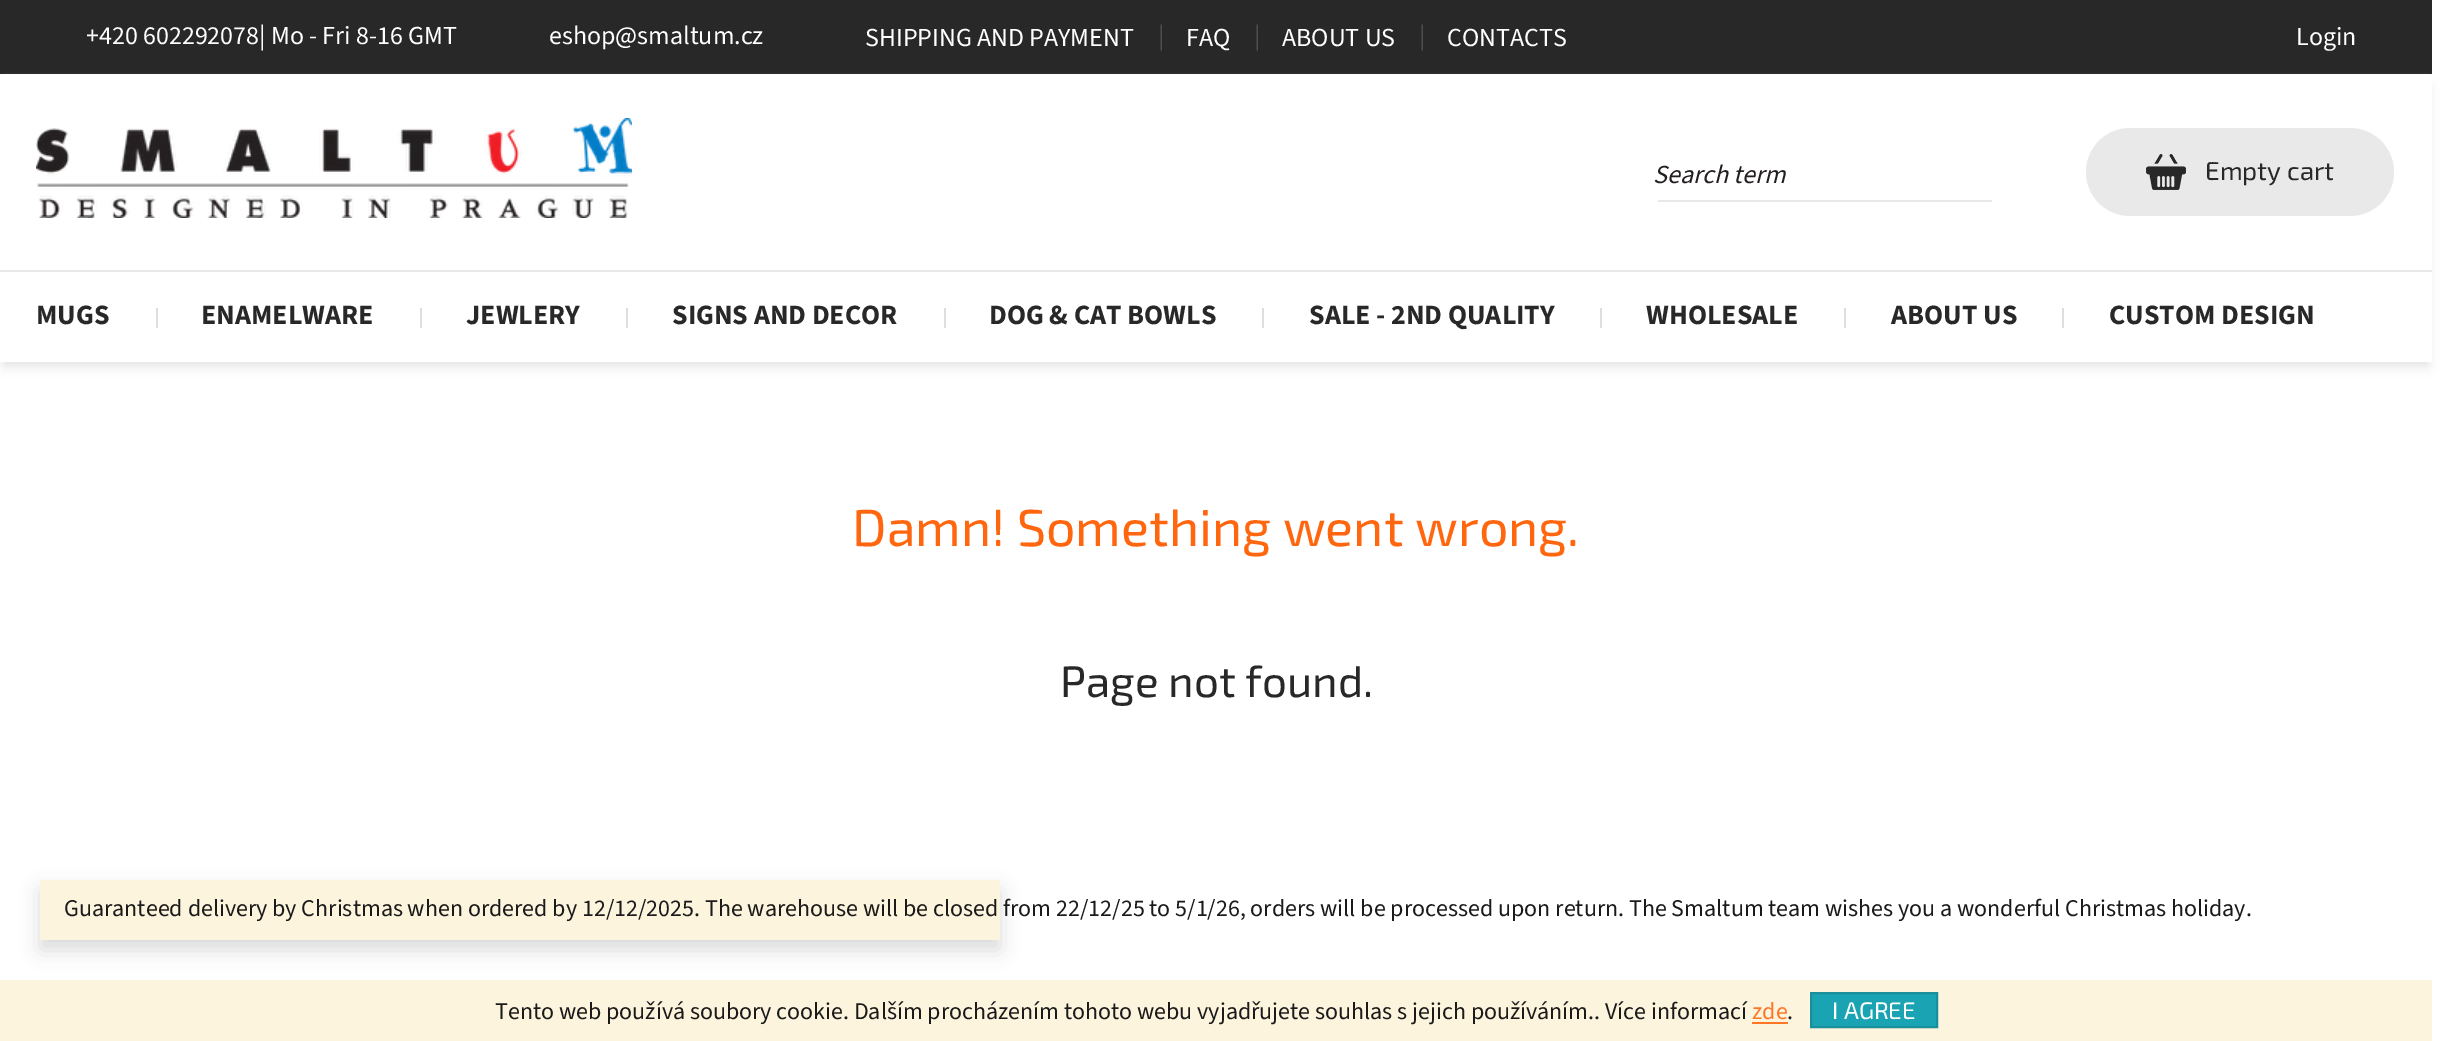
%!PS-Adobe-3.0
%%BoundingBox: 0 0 2462 1041
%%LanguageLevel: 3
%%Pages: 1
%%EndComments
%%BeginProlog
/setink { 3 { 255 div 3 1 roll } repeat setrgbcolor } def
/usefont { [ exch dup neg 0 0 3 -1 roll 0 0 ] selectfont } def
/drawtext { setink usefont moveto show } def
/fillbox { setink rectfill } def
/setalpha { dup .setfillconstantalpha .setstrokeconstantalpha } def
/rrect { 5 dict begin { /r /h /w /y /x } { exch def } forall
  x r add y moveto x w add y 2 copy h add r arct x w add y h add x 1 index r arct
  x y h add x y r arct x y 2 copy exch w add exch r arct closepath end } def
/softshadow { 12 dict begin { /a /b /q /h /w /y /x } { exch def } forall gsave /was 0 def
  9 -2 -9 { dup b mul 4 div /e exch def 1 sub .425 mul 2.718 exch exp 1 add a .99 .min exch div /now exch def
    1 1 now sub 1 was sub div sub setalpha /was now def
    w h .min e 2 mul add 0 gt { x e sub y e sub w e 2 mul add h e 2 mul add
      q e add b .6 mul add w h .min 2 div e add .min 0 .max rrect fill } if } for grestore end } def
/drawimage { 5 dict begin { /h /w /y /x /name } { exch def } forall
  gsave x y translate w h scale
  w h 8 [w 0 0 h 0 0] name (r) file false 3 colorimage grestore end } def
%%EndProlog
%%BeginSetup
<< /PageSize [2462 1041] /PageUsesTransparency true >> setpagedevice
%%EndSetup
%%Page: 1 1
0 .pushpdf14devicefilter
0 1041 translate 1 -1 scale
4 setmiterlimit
0 0 2462 1041 255 255 255 fillbox
0 980 2432 61 253 244 222 fillbox
0 0 2432 74 40 40 40 fillbox
(+420 602292078| Mo - Fri 8-16 GMT) 86 44 /SourceSans3-Regular 26 255 255 255 drawtext
(eshop@smaltum.cz) 549 44 /SourceSans3-Regular 26 255 255 255 drawtext
(SHIPPING AND PAYMENT) 865 46 /SourceSans3-Regular 26 255 255 255 drawtext
(|) 1158 44 /SourceSans3-Regular 26 77 77 77 drawtext
(FAQ) 1186 46 /SourceSans3-Regular 26 255 255 255 drawtext
(|) 1254 44 /SourceSans3-Regular 26 77 77 77 drawtext
(ABOUT US) 1282 46 /SourceSans3-Regular 26 255 255 255 drawtext
(|) 1419 44 /SourceSans3-Regular 26 77 77 77 drawtext
(CONTACTS) 1447 46 /SourceSans3-Regular 26 255 255 255 drawtext
(Login) 2296 45 /SourceSans3-Regular 26 255 255 255 drawtext
gsave
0 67 moveto 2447 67 lineto 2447 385 lineto 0 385 lineto closepath 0 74 moveto 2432 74 lineto 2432 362 lineto 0 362 lineto closepath eoclip newpath
224 224 224 setink
4 86 2424 280 0 6 1 softshadow
grestore
(assets/img1.rgb) 36 118 596 100 drawimage
1658 200 334 2 233 232 232 fillbox
(Search term) 1653 183 /SourceSans3-Italic 26 35 31 32 drawtext
233 233 233 setink
2086 128 308 88 44 rrect fill
(assets/img2.rgb) 2146 154 40 36 drawimage
(Empty cart) 2205 180 /Exo2-Regular 26 40 40 40 drawtext
0 270 2432 2 233 232 232 fillbox
(MUGS) 36 324 /SourceSans3-Bold 28 40 40 40 drawtext
156 308 2 20 222 222 222 fillbox
(ENAMELWARE) 201 324 /SourceSans3-Bold 28 40 40 40 drawtext
420 308 2 20 222 222 222 fillbox
(JEWLERY) 466 324 /SourceSans3-Bold 28 40 40 40 drawtext
626 308 2 20 222 222 222 fillbox
(SIGNS AND DECOR) 672 324 /SourceSans3-Bold 28 40 40 40 drawtext
944 308 2 20 222 222 222 fillbox
(DOG & CAT BOWLS) 989 324 /SourceSans3-Bold 28 40 40 40 drawtext
1262 308 2 20 222 222 222 fillbox
(SALE - 2ND QUALITY) 1309 324 /SourceSans3-Bold 28 40 40 40 drawtext
1600 308 2 20 222 222 222 fillbox
(WHOLESALE) 1646 324 /SourceSans3-Bold 28 40 40 40 drawtext
1844 308 2 20 222 222 222 fillbox
(ABOUT US) 1891 324 /SourceSans3-Bold 28 40 40 40 drawtext
2062 308 2 20 222 222 222 fillbox
(CUSTOM DESIGN) 2109 324 /SourceSans3-Bold 28 40 40 40 drawtext
(Damn! Something went wrong.) 852 546 /Exo2-Regular 52 255 102 14 drawtext
(Page not found.) 1060 697 /Exo2-Regular 44 40 40 40 drawtext
26 26 26 setink
40 890 960 60 0 10 0.16 softshadow
40 880 960 60 253 244 222 fillbox
(Guaranteed delivery by Christmas when ordered by 12/12/2025. The warehouse will be closed from 22/12/25 to 5/1/26, orders will be processed upon return. The Smaltum team wishes you a wonderful Christmas holiday.) 64 916 /SourceSans3-Regular 24 26 26 26 drawtext
(Tento web používá soubory cookie. Dalším procházením tohoto webu vyjadřujete souhlas s jejich používáním.. Více informací) 495 1019 /SourceSans3-Regular 24 26 26 26 drawtext
(zde) 1752 1019 /SourceSans3-Regular 24 255 117 38 drawtext
1752 1022 36 2 255 117 38 fillbox
(.) 1787 1019 /SourceSans3-Regular 24 26 26 26 drawtext
26 164 179 setink
1811 993 moveto 1937 993 lineto 1937 1027 lineto 1811 1027 lineto closepath gsave fill grestore
26 143 156 setink
2 setlinewidth
stroke
(I AGREE) 1832 1019 /Exo2-Regular 24 255 255 255 drawtext
.poppdf14devicefilter showpage
%%EOF
